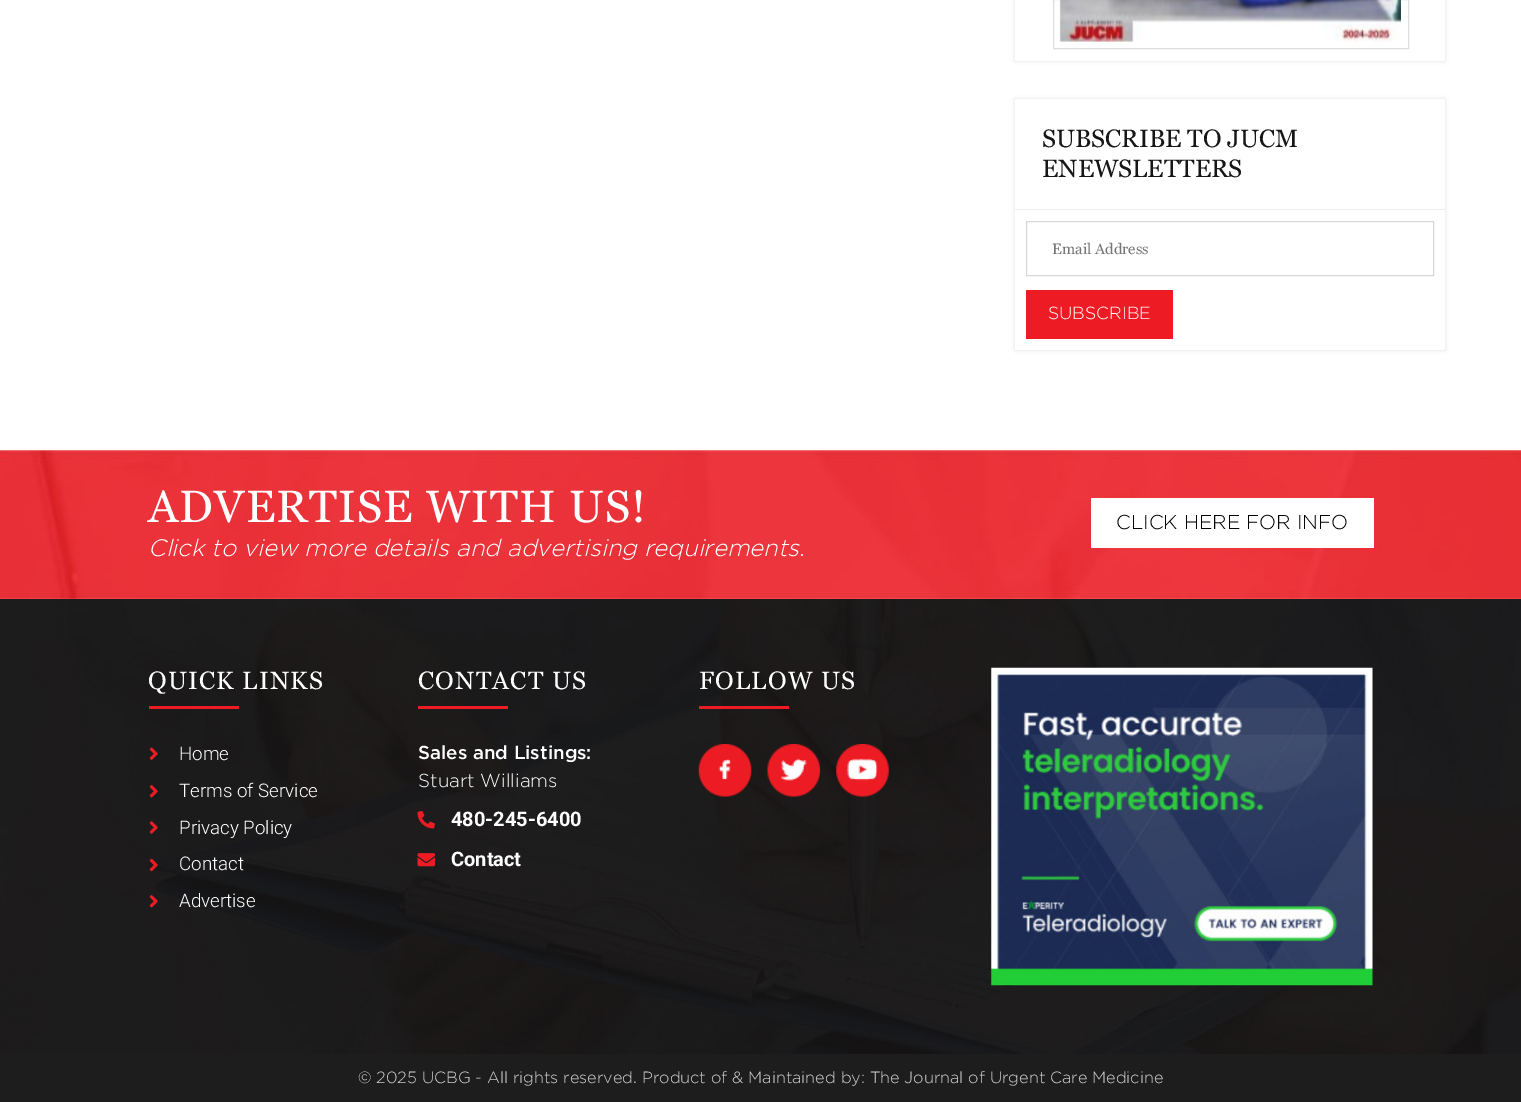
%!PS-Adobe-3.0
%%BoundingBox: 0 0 1521 1102
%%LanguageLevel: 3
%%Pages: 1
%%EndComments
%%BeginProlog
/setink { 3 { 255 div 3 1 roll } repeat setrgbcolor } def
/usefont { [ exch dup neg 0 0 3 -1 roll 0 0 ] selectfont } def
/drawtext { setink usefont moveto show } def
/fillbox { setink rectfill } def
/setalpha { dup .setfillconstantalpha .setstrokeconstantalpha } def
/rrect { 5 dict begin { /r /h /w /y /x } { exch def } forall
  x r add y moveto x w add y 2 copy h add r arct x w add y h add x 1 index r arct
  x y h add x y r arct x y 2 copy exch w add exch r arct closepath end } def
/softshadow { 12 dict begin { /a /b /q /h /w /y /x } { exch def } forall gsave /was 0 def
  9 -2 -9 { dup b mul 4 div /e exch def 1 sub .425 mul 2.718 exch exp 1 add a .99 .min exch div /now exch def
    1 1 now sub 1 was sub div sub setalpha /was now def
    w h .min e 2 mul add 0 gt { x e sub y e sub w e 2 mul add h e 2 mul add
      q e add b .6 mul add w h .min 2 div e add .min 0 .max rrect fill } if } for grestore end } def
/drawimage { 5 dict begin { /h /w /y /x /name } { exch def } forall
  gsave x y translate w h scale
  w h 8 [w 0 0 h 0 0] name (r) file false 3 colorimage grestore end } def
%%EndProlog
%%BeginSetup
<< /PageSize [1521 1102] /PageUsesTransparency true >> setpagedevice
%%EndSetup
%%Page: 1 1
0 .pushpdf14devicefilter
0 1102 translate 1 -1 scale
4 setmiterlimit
0 0 1521 1102 255 255 255 fillbox
gsave
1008 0 moveto 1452 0 lineto 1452 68 lineto 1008 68 lineto closepath 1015 -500 moveto 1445 -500 lineto 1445 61 lineto 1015 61 lineto closepath eoclip newpath
0 0 0 setink
1015 -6 430 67 0 2 0.12 softshadow
grestore
221 221 221 setink
1053.5 -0.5 355 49 rectstroke
(assets/img1.rgb) 1059 0 342 42 drawimage
gsave
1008 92 moveto 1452 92 lineto 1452 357 lineto 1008 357 lineto closepath 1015 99 moveto 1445 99 lineto 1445 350 lineto 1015 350 lineto closepath eoclip newpath
0 0 0 setink
1015 99 430 251 0 2 0.12 softshadow
grestore
1015 209 430 1 238 238 238 fillbox
(SUBSCRIBE TO JUCM) 1042 147 /Georgia-Regular 25 22 22 22 drawtext
(ENEWSLETTERS) 1042 177 /Georgia-Regular 25 22 22 22 drawtext
216 216 216 setink
1026.5 221.5 407 54 rectstroke
(Email Address) 1052 254 /Georgia-Regular 15 117 117 117 drawtext
1026 290 147 49 237 28 36 fillbox
(SUBSCRIBE) 1048 319 /Gotham-Light 17.5 255 255 255 drawtext
(assets/img2.rgb) 0 450 1521 149 drawimage
/Georgia-Regular 45 usefont
148 522 moveto 1.25 0 (ADVERTISE WITH US!) ashow
(Click to view more details and advertising requirements.) 148 556 /Gotham-LightItalic 23.75 255 255 255 drawtext
1091 498 283 50 255 255 255 fillbox
(CLICK HERE FOR INFO) 1116 529 /Gotham-Light 20 0 0 0 drawtext
(assets/img3.rgb) 0 599 1521 455 drawimage
/Georgia-Regular 25 usefont
255 255 255 setink
148 689 moveto 1.25 0 (QUICK LINKS) ashow
149 706 90 3 237 28 36 fillbox
(assets/img4.rgb) 149 747 9 13 drawimage
(Home) 179 760 /Roboto-Light 18.75 255 255 255 drawtext
(assets/img5.rgb) 149 785 9 13 drawimage
(Terms of Service) 179 797 /Roboto-Light 18.75 255 255 255 drawtext
(assets/img6.rgb) 149 821 9 13 drawimage
(Privacy Policy) 179 834 /Roboto-Light 18.75 255 255 255 drawtext
(assets/img7.rgb) 149 858 9 14 drawimage
(Contact) 179 870 /Roboto-Light 18.75 255 255 255 drawtext
(assets/img8.rgb) 149 895 9 13 drawimage
(Advertise) 179 907 /Roboto-Light 18.75 255 255 255 drawtext
/Georgia-Regular 25 usefont
418 689 moveto 1.25 0 (CONTACT US) ashow
418 706 90 3 237 28 36 fillbox
(Sales and Listings:) 418 759 /Gotham-Medium 18.75 255 255 255 drawtext
(Stuart Williams) 418 787 /Gotham-Light 18.75 255 255 255 drawtext
(assets/img9.rgb) 417 811 18 18 drawimage
(480-245-6400) 451 826 /Roboto-Bold 20 255 255 255 drawtext
(assets/img10.rgb) 417 853 18 14 drawimage
(Contact) 451 866 /Roboto-Bold 20 255 255 255 drawtext
/Georgia-Regular 25 usefont
699 689 moveto 1.25 0 (FOLLOW US) ashow
699 706 90 3 237 28 36 fillbox
(assets/img11.rgb) 698 744 54 53 drawimage
(assets/img12.rgb) 767 744 53 53 drawimage
(assets/img13.rgb) 836 744 53 53 drawimage
(assets/img14.rgb) 991 667 382 319 drawimage
0 1054 1521 48 29 29 29 fillbox
(© 2025 UCBG - All rights reserved. Product of & Maintained by: The Journal of Urgent Care Medicine) 358 1083 /Gotham-Light 16.25 209 209 209 drawtext
.poppdf14devicefilter showpage
%%EOF
